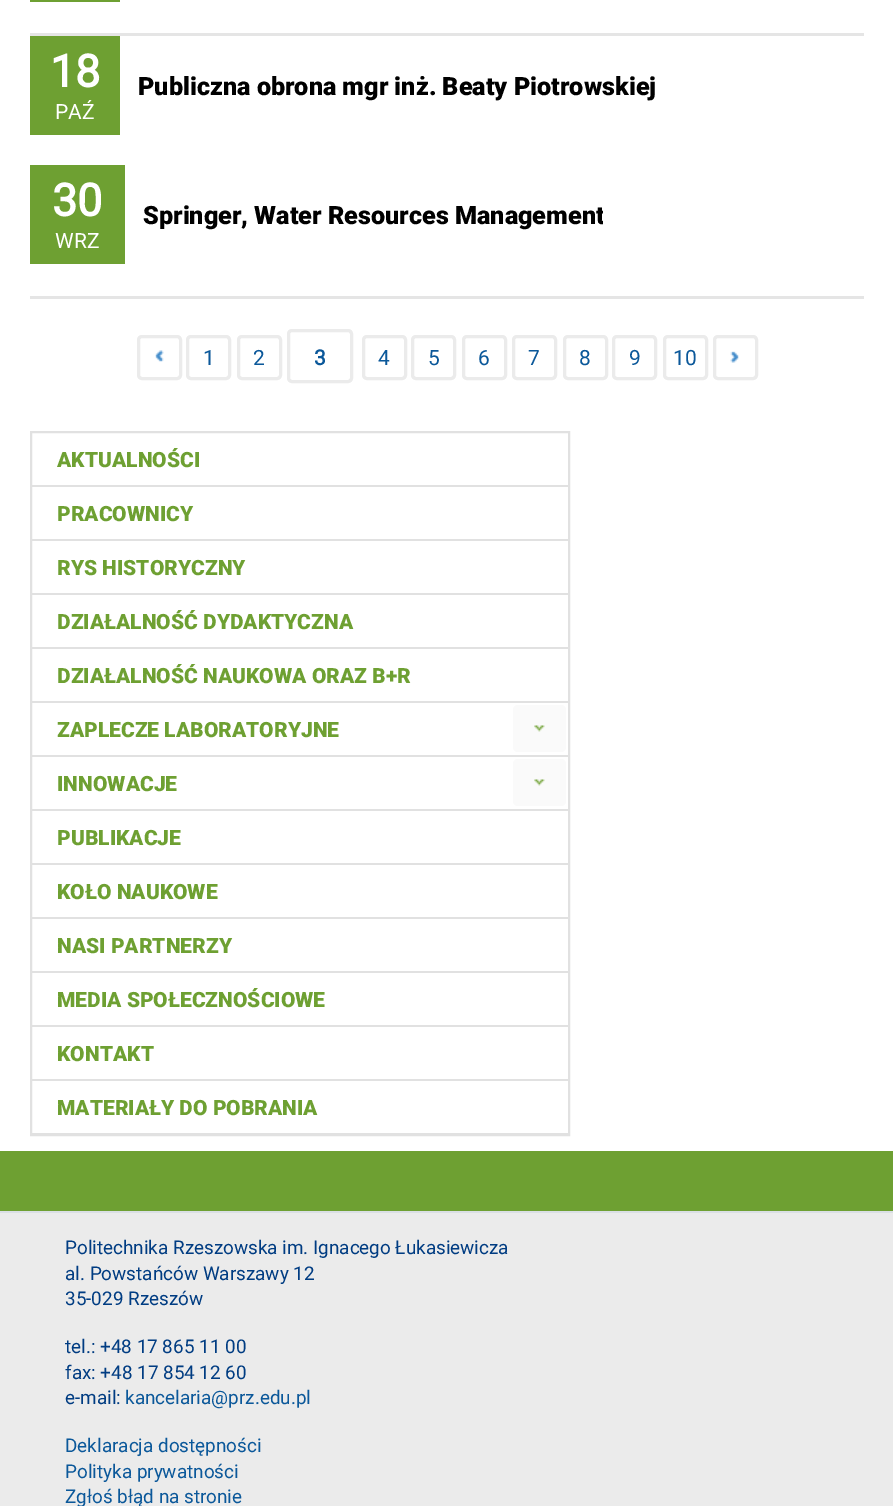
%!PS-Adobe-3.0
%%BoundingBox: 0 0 893 1506
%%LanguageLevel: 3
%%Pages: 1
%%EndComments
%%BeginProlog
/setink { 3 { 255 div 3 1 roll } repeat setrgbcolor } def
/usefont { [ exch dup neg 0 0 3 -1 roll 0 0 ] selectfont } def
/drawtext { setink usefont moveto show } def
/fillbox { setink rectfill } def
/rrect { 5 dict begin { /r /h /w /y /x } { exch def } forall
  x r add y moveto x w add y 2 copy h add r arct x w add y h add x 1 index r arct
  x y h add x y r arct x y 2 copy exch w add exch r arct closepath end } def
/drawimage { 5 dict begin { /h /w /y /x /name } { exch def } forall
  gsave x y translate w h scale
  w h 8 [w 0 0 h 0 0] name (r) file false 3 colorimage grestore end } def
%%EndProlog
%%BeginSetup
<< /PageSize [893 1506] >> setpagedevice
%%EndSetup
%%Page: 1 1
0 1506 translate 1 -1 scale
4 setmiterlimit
0 0 893 1506 255 255 255 fillbox
30 0 90 2 110 160 50 fillbox
30 33 834 3 229 229 229 fillbox
30 36 90 99 110 160 50 fillbox
(18) 50 87 /Roboto-Bold 45 255 255 255 drawtext
(PAŹ) 55 119 /Roboto-Regular 21 255 255 255 drawtext
(Publiczna obrona mgr inż. Beaty Piotrowskiej) 138 95 /Roboto-Black 25.2 0 0 0 drawtext
30 165 95 99 110 160 50 fillbox
(30) 52 216 /Roboto-Bold 45 255 255 255 drawtext
(WRZ) 55 248 /Roboto-Regular 21 255 255 255 drawtext
gsave
143 200 460 30 rectclip
(Springer, Water Resources Management) 143 224 /Roboto-Black 25.2 0 0 0 drawtext
grestore
30 296 834 3 229 229 229 fillbox
(assets/img1.rgb) 155 350 9 12 drawimage
235 235 235 setink
3 setlinewidth
138.5 336.5 42 42 3.5 rrect stroke
187.5 336.5 42 42 3.5 rrect stroke
(1) 203 365 /Roboto-Regular 21 11 88 154 drawtext
235 235 235 setink
238.5 336.5 42 42 3.5 rrect stroke
(2) 253 365 /Roboto-Regular 21 11 88 154 drawtext
235 235 235 setink
288.5 330.5 63 51 3.5 rrect stroke
(3) 314 365 /Roboto-Bold 21 11 88 154 drawtext
235 235 235 setink
363.5 336.5 42 42 3.5 rrect stroke
(4) 378 365 /Roboto-Regular 21 11 88 154 drawtext
235 235 235 setink
412.5 336.5 42 42 3.5 rrect stroke
(5) 428 365 /Roboto-Regular 21 11 88 154 drawtext
235 235 235 setink
463.5 336.5 42 42 3.5 rrect stroke
(6) 478 365 /Roboto-Regular 21 11 88 154 drawtext
235 235 235 setink
513.5 336.5 42 42 3.5 rrect stroke
(7) 528 365 /Roboto-Regular 21 11 88 154 drawtext
235 235 235 setink
564.5 336.5 42 42 3.5 rrect stroke
(8) 579 365 /Roboto-Regular 21 11 88 154 drawtext
235 235 235 setink
613.5 336.5 42 42 3.5 rrect stroke
(9) 629 365 /Roboto-Regular 21 11 88 154 drawtext
235 235 235 setink
664.5 336.5 42 42 3.5 rrect stroke
(10) 673 365 /Roboto-Regular 21 11 88 154 drawtext
(assets/img2.rgb) 730 351 9 12 drawimage
235 235 235 setink
714.5 336.5 42 42 3.5 rrect stroke
225 225 225 setink
2 setlinewidth
31 432 538 703 rectstroke
32 485 537 2 225 225 225 fillbox
(AKTUALNOŚCI) 57 467 /Roboto-Black 21 110 160 50 drawtext
32 539 537 2 225 225 225 fillbox
(PRACOWNICY) 57 521 /Roboto-Black 21 110 160 50 drawtext
32 593 537 2 225 225 225 fillbox
(RYS HISTORYCZNY) 57 575 /Roboto-Black 21 110 160 50 drawtext
32 647 537 2 225 225 225 fillbox
(DZIAŁALNOŚĆ DYDAKTYCZNA) 57 629 /Roboto-Black 21 110 160 50 drawtext
32 701 537 2 225 225 225 fillbox
(DZIAŁALNOŚĆ NAUKOWA ORAZ B+R) 57 683 /Roboto-Black 21 110 160 50 drawtext
32 755 537 2 225 225 225 fillbox
(ZAPLECZE LABORATORYJNE) 57 737 /Roboto-Black 21 110 160 50 drawtext
250 250 250 setink
513 705 53 47 5 rrect fill
(assets/img3.rgb) 534 725 11 7 drawimage
32 809 537 2 225 225 225 fillbox
(INNOWACJE) 57 791 /Roboto-Black 21 110 160 50 drawtext
250 250 250 setink
513 759 53 47 5 rrect fill
(assets/img3.rgb) 534 779 11 7 drawimage
32 863 537 2 225 225 225 fillbox
(PUBLIKACJE) 57 845 /Roboto-Black 21 110 160 50 drawtext
32 917 537 2 225 225 225 fillbox
(KOŁO NAUKOWE) 57 899 /Roboto-Black 21 110 160 50 drawtext
32 971 537 2 225 225 225 fillbox
(NASI PARTNERZY) 57 953 /Roboto-Black 21 110 160 50 drawtext
32 1025 537 2 225 225 225 fillbox
(MEDIA SPOŁECZNOŚCIOWE) 57 1007 /Roboto-Black 21 110 160 50 drawtext
32 1079 537 2 225 225 225 fillbox
(KONTAKT) 57 1061 /Roboto-Black 21 110 160 50 drawtext
32 1133 537 1 225 225 225 fillbox
(MATERIAŁY DO POBRANIA) 57 1115 /Roboto-Black 21 110 160 50 drawtext
0 1151 893 60 110 160 50 fillbox
0 1213 893 293 235 235 235 fillbox
0 1211 893 2 218 223 228 fillbox
(Politechnika Rzeszowska im. Ignacego Łukasiewicza) 65 1254 /Roboto-Regular 18.9 0 60 130 drawtext
(al. Powstańców Warszawy 12) 65 1280 /Roboto-Regular 18.9 0 60 130 drawtext
(35-029 Rzeszów) 65 1305 /Roboto-Regular 18.9 0 60 130 drawtext
(tel.: +48 17 865 11 00) 65 1353 /Roboto-Regular 18.9 0 60 130 drawtext
(fax: +48 17 854 12 60) 65 1379 /Roboto-Regular 18.9 0 60 130 drawtext
(e-mail:) 65 1404 /Roboto-Regular 18.9 0 60 130 drawtext
(kancelaria@prz.edu.pl) 125 1404 /Roboto-Regular 18.9 11 88 154 drawtext
(Deklaracja dostępności) 65 1452 /Roboto-Regular 18.9 11 88 154 drawtext
(Polityka prywatności) 65 1478 /Roboto-Regular 18.9 11 88 154 drawtext
(Zgłoś błąd na stronie) 65 1503 /Roboto-Regular 18.9 11 88 154 drawtext
showpage
%%EOF
